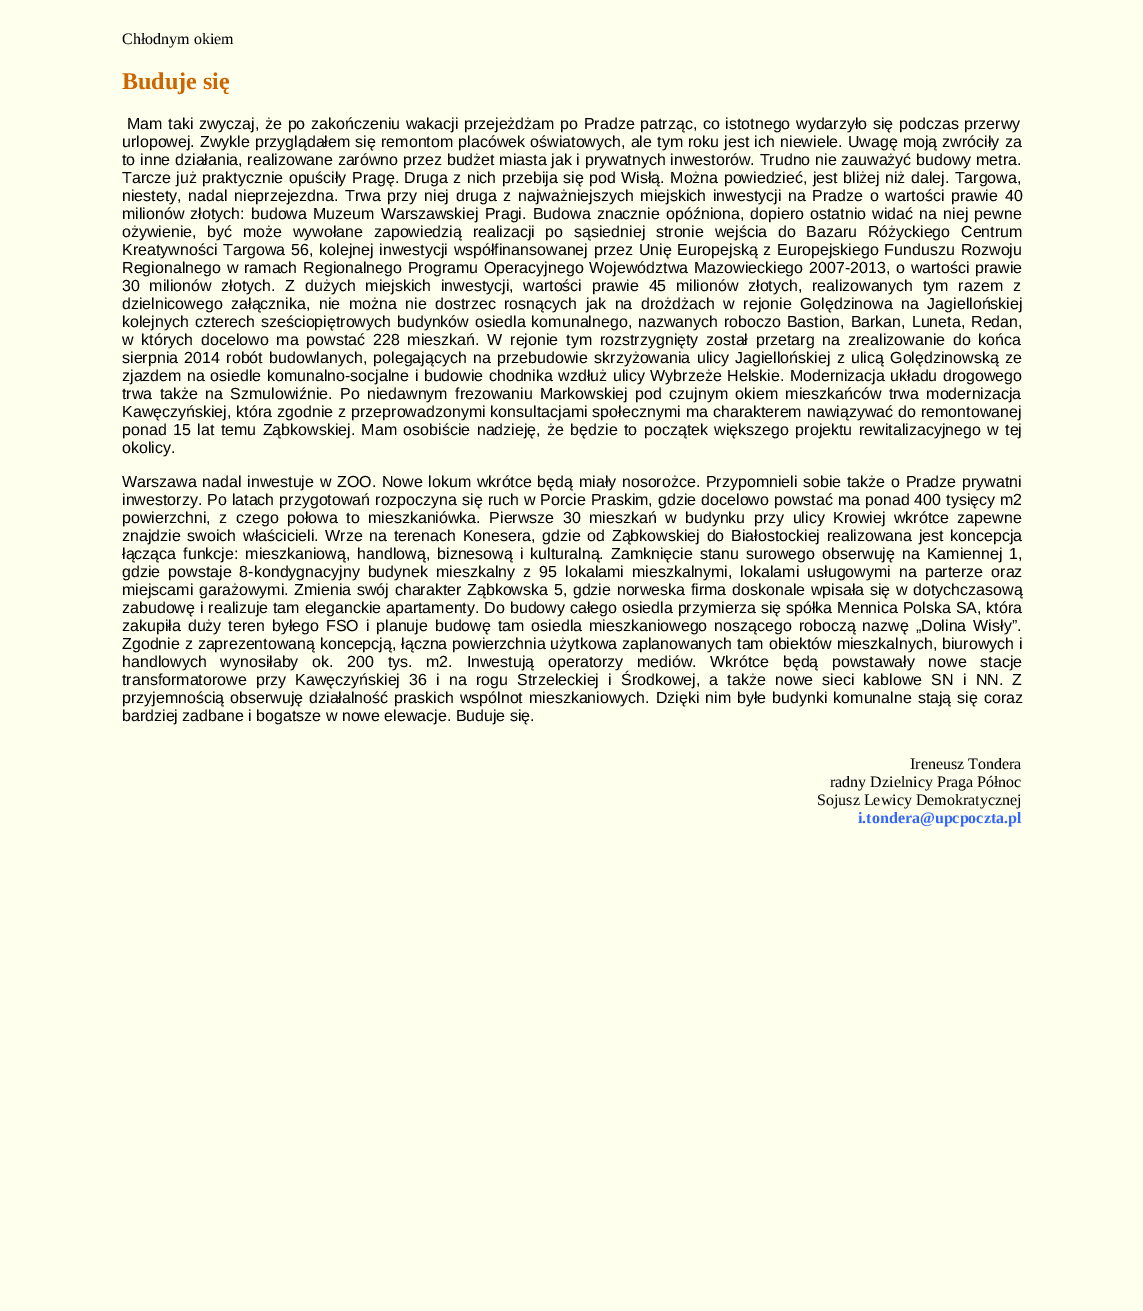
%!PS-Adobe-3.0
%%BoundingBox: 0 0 1143 1311
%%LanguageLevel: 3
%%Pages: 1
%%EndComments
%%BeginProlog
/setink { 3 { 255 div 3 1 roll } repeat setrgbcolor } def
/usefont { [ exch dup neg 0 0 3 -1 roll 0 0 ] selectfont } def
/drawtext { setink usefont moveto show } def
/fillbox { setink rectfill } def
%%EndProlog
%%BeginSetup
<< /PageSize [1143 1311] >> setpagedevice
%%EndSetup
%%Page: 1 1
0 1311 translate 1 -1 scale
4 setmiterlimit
0 0 1143 1311 255 255 238 fillbox
(Chłodnym okiem) 122 44 /LiberationSerif-Regular 16 0 0 0 drawtext
(Buduje się) 122 89 /LiberationSerif-Bold 24 204 102 0 drawtext
/LiberationSans-Regular 16 usefont
0 0 0 setink
127 129 moveto 1.25 0 32 (Mam taki zwyczaj, że po zakończeniu wakacji przejeżdżam po Pradze patrząc, co istotnego wydarzyło się podczas przerwy) widthshow
122 147 moveto 0.75 0 32 (urlopowej. Zwykle przyglądałem się remontom placówek oświatowych, ale tym roku jest ich niewiele. Uwagę moją zwróciły za) widthshow
122 165 moveto 0.3 0 32 (to inne działania, realizowane zarówno przez budżet miasta jak i prywatnych inwestorów. Trudno nie zauważyć budowy metra.) widthshow
122 183 moveto 1 0 32 (Tarcze już praktycznie opuściły Pragę. Druga z nich przebija się pod Wisłą. Można powiedzieć, jest bliżej niż dalej. Targowa,) widthshow
122 201 moveto 2.25 0 32 (niestety, nadal nieprzejezdna. Trwa przy niej druga z najważniejszych miejskich inwestycji na Pradze o wartości prawie 40) widthshow
122 219 moveto 1.75 0 32 (milionów złotych: budowa Muzeum Warszawskiej Pragi. Budowa znacznie opóźniona, dopiero ostatnio widać na niej pewne) widthshow
122 237 moveto 6.25 0 32 (ożywienie, być może wywołane zapowiedzią realizacji po sąsiedniej stronie wejścia do Bazaru Różyckiego Centrum) widthshow
122 255 moveto 1.4 0 32 (Kreatywności Targowa 56, kolejnej inwestycji współfinansowanej przez Unię Europejską z Europejskiego Funduszu Rozwoju) widthshow
122 273 moveto 1.4 0 32 (Regionalnego w ramach Regionalnego Programu Operacyjnego Województwa Mazowieckiego 2007-2013, o wartości prawie) widthshow
122 291 moveto 5.25 0 32 (30 milionów złotych. Z dużych miejskich inwestycji, wartości prawie 45 milionów złotych, realizowanych tym razem z) widthshow
122 309 moveto 4.1 0 32 (dzielnicowego załącznika, nie można nie dostrzec rosnących jak na drożdżach w rejonie Golędzinowa na Jagiellońskiej) widthshow
122 327 moveto 1.5 0 32 (kolejnych czterech sześciopiętrowych budynków osiedla komunalnego, nazwanych roboczo Bastion, Barkan, Luneta, Redan,) widthshow
122 345 moveto 3.4 0 32 (w których docelowo ma powstać 228 mieszkań. W rejonie tym rozstrzygnięty został przetarg na zrealizowanie do końca) widthshow
122 363 moveto 1.9 0 32 (sierpnia 2014 robót budowlanych, polegających na przebudowie skrzyżowania ulicy Jagiellońskiej z ulicą Golędzinowską ze) widthshow
122 381 moveto 1.1 0 32 (zjazdem na osiedle komunalno-socjalne i budowie chodnika wzdłuż ulicy Wybrzeże Helskie. Modernizacja układu drogowego) widthshow
122 399 moveto 2.9 0 32 (trwa także na Szmulowiźnie. Po niedawnym frezowaniu Markowskiej pod czujnym okiem mieszkańców trwa modernizacja) widthshow
122 417 moveto 0.6 0 32 (Kawęczyńskiej, która zgodnie z przeprowadzonymi konsultacjami społecznymi ma charakterem nawiązywać do remontowanej) widthshow
122 435 moveto 2 0 32 (ponad 15 lat temu Ząbkowskiej. Mam osobiście nadzieję, że będzie to początek większego projektu rewitalizacyjnego w tej) widthshow
(okolicy.) 122 453 /LiberationSans-Regular 16 0 0 0 drawtext
122 487 moveto 1.25 0 32 (Warszawa nadal inwestuje w ZOO. Nowe lokum wkrótce będą miały nosorożce. Przypomnieli sobie także o Pradze prywatni) widthshow
122 505 moveto 0.6 0 32 (inwestorzy. Po latach przygotowań rozpoczyna się ruch w Porcie Praskim, gdzie docelowo powstać ma ponad 400 tysięcy m2) widthshow
122 523 moveto 4 0 32 (powierzchni, z czego połowa to mieszkaniówka. Pierwsze 30 mieszkań w budynku przy ulicy Krowiej wkrótce zapewne) widthshow
122 541 moveto 2.25 0 32 (znajdzie swoich właścicieli. Wrze na terenach Konesera, gdzie od Ząbkowskiej do Białostockiej realizowana jest koncepcja) widthshow
122 559 moveto 2.5 0 32 (łącząca funkcje: mieszkaniową, handlową, biznesową i kulturalną. Zamknięcie stanu surowego obserwuję na Kamiennej 1,) widthshow
122 577 moveto 3.6 0 32 (gdzie powstaje 8-kondygnacyjny budynek mieszkalny z 95 lokalami mieszkalnymi, lokalami usługowymi na parterze oraz) widthshow
122 595 moveto 1.25 0 32 (miejscami garażowymi. Zmienia swój charakter Ząbkowska 5, gdzie norweska firma doskonale wpisała się w dotychczasową) widthshow
122 613 moveto 0.5 0 32 (zabudowę i realizuje tam eleganckie apartamenty. Do budowy całego osiedla przymierza się spółka Mennica Polska SA, która) widthshow
122 631 moveto 2.5 0 32 (zakupiła duży teren byłego FSO i planuje budowę tam osiedla mieszkaniowego noszącego roboczą nazwę „Dolina Wisły”.) widthshow
122 649 moveto 0.4 0 32 (Zgodnie z zaprezentowaną koncepcją, łączna powierzchnia użytkowa zaplanowanych tam obiektów mieszkalnych, biurowych i) widthshow
122 667 moveto 9.25 0 32 (handlowych wynosiłaby ok. 200 tys. m2. Inwestują operatorzy mediów. Wkrótce będą powstawały nowe stacje) widthshow
122 685 moveto 4.75 0 32 (transformatorowe przy Kawęczyńskiej 36 i na rogu Strzeleckiej i Środkowej, a także nowe sieci kablowe SN i NN. Z) widthshow
122 703 moveto 1.5 0 32 (przyjemnością obserwuję działalność praskich wspólnot mieszkaniowych. Dzięki nim byłe budynki komunalne stają się coraz) widthshow
(bardziej zadbane i bogatsze w nowe elewacje. Buduje się.) 122 721 /LiberationSans-Regular 16 0 0 0 drawtext
(Ireneusz Tondera) 910 769 /LiberationSerif-Regular 16 0 0 0 drawtext
(radny Dzielnicy Praga Północ) 830 787 /LiberationSerif-Regular 16 0 0 0 drawtext
(Sojusz Lewicy Demokratycznej) 817 805 /LiberationSerif-Regular 16 0 0 0 drawtext
(i.tondera@upcpoczta.pl) 858 823 /LiberationSerif-Bold 16 51 102 255 drawtext
showpage
%%EOF
